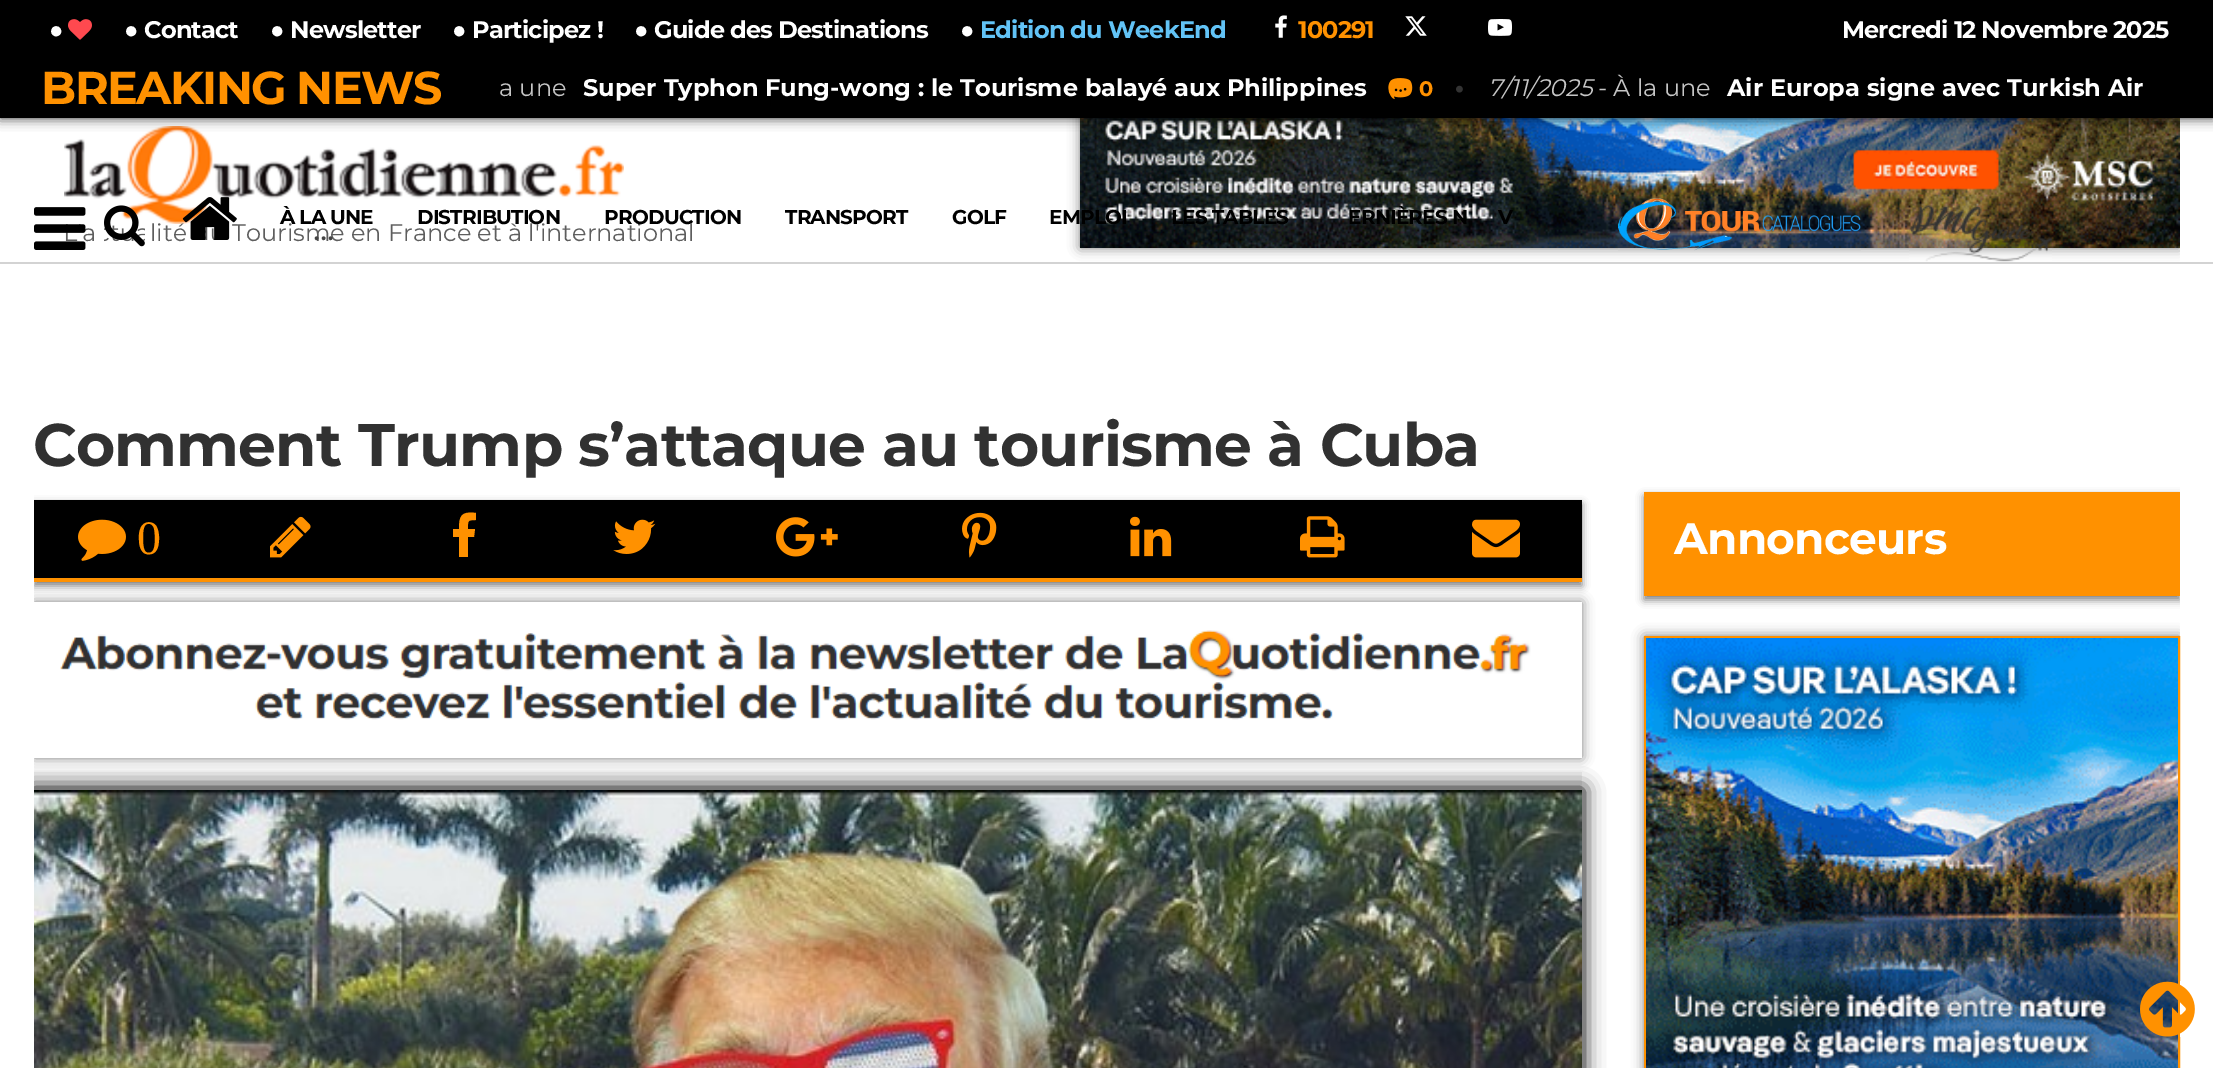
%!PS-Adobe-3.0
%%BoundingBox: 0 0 2213 1068
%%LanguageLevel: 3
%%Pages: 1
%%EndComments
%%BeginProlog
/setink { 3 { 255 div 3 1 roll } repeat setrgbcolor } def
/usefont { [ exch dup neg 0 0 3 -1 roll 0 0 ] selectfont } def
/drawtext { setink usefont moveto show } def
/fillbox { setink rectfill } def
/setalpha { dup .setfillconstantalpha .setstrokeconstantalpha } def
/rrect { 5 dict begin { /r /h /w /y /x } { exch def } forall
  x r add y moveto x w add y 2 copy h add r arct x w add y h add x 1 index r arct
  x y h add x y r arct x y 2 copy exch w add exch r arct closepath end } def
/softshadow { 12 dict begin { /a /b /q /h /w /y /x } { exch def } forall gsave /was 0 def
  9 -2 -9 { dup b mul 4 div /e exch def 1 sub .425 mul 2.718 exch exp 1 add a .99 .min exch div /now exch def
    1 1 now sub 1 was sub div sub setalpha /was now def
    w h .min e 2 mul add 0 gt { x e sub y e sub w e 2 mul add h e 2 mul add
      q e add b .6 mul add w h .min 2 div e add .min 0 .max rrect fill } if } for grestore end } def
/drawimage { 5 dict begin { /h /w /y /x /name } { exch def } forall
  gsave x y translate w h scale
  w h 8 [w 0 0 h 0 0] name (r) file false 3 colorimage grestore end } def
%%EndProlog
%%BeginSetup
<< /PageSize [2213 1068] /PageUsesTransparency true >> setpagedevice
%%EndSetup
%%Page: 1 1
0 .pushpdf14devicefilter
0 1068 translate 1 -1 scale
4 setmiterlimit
0 0 2213 1068 255 255 255 fillbox
(assets/img12.rgb) 64 126 560 98 drawimage
0 262 2213 2 211 211 211 fillbox
gsave
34 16 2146 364 rectclip
0 0 0 setink
1080 106 1100 142 0 6 0.5 softshadow
grestore
(assets/img13.rgb) 1080 118 1100 130 drawimage
0 0 0 setink
0 42 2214 76 0 6 0.8 softshadow
0 60 2213 58 0 0 0 fillbox
(assets/img5.rgb) 1388 78 25 22 drawimage
0 0 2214 60 0 6 0.8 softshadow
(a) 82 241 /Montserrat-Regular 24 94 94 94 drawtext
(assets/img7.rgb) 34 207 52 43 drawimage
(assets/img8.rgb) 104 205 41 42 drawimage
(lité) 150 241 /Montserrat-Regular 24 94 94 94 drawtext
(Tourisme en France et à l'international) 232 241 /Montserrat-Regular 24 94 94 94 drawtext
(assets/img9.rgb) 182 197 55 43 drawimage
gsave
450 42 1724 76 rectclip
0 0 0 setink
180 -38 360 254 0 60 1 softshadow
grestore
(assets/img11.rgb) 1909 205 143 57 drawimage
gsave
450 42 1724 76 rectclip
0 0 0 setink
2104 -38 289 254 0 60 1 softshadow
grestore
0 0 2213 60 0 0 0 fillbox
/LiberationSans-Bold 24 usefont
255 255 255 setink
49 38 moveto -0.8 0 (●) ashow
(assets/img1.rgb) 68 19 24 21 drawimage
124 38 moveto -0.8 0 (●) ashow
/Montserrat-Bold 24 usefont
144 38 moveto -0.8 0 (Contact) ashow
/LiberationSans-Bold 24 usefont
270 38 moveto -0.8 0 (●) ashow
/Montserrat-Bold 24 usefont
290 38 moveto -0.8 0 (Newsletter) ashow
/LiberationSans-Bold 24 usefont
452 38 moveto -0.8 0 (●) ashow
/Montserrat-Bold 24 usefont
472 38 moveto -0.8 0 (Participez !) ashow
/LiberationSans-Bold 24 usefont
634 38 moveto -0.8 0 (●) ashow
/Montserrat-Bold 24 usefont
654 38 moveto -0.8 0 (Guide des Destinations) ashow
/LiberationSans-Bold 24 usefont
960 38 moveto -0.8 0 (●) ashow
/Montserrat-Bold 24 usefont
98 195 246 setink
980 38 moveto -0.8 0 (Edition du WeekEnd) ashow
(assets/img2.rgb) 1275 15 12 23 drawimage
255 145 0 setink
1298 38 moveto -0.8 0 (100291) ashow
(assets/img3.rgb) 1405 16 22 20 drawimage
(assets/img4.rgb) 1488 19 24 17 drawimage
255 255 255 setink
1842 38 moveto -0.8 0 (Mercredi 12 Novembre 2025) ashow
/Montserrat-Bold 46 usefont
255 145 0 setink
41 104 moveto -1.6 0 (BREAKING NEWS) ashow
(a une) 499 96 /Montserrat-Regular 24 198 198 198 drawtext
(Super Typhon Fung-wong : le Tourisme balayé aux Philippines) 583 96 /Montserrat-Bold 24 255 255 255 drawtext
(0) 1419 96 /Montserrat-Bold 21 255 145 0 drawtext
(assets/img6.rgb) 1456 85 7 8 drawimage
(7/11/2025) 1488 96 /Montserrat-Italic 24 198 198 198 drawtext
(- À la une) 1598 96 /Montserrat-Regular 24 198 198 198 drawtext
(Air Europa signe avec Turkish Air) 1727 96 /Montserrat-Bold 24 255 255 255 drawtext
/Montserrat-Bold 20 usefont
0 0 0 setink
280 224 moveto -0.8 0 (À LA UNE) ashow
69 69 69 setink
314 240 moveto 2 0 (...) ashow
0 0 0 setink
417 224 moveto -0.8 0 (DISTRIBUTION) ashow
604 224 moveto -0.8 0 (PRODUCTION) ashow
785 224 moveto -0.8 0 (TRANSPORT) ashow
952 224 moveto -0.8 0 (GOLF) ashow
1049 224 moveto -0.8 0 (EMPLOI) ashow
1171 224 moveto -0.8 0 (LES TABLES) ashow
1348 224 moveto -0.8 0 (ERNIÈRES N) ashow
1498 224 moveto -0.8 0 (V) ashow
(assets/img10.rgb) 1618 198 243 53 drawimage
/Montserrat-Bold 60 usefont
49 49 49 setink
33 466 moveto -0.8 0 (Comment Trump s’attaque au tourisme à Cuba) ashow
gsave
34 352 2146 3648 rectclip
0 0 0 setink
34 504 1548 82 0 4 0.5 softshadow
grestore
34 500 1548 78 0 0 0 fillbox
34 578 1548 4 255 145 0 fillbox
(assets/img14.rgb) 78 519 48 42 drawimage
(0) 137 554 /LiberationSerif-Regular 48 255 145 0 drawtext
(assets/img15.rgb) 270 516 41 42 drawimage
476 513 moveto 476 520 lineto 467 520 468 521 468 529 curveto 475 529 lineto 474 537 lineto 468 537 lineto 468 557 lineto 459 557 lineto 459 537 lineto 453 537 lineto 453 529 lineto 459 529 lineto 459 516 461 511 476 513 curveto closepath fill
(assets/img16.rgb) 613 519 43 35 drawimage
(assets/img17.rgb) 776 517 62 40 drawimage
(assets/img18.rgb) 962 512 35 46 drawimage
(assets/img19.rgb) 1130 516 42 41 drawimage
(assets/img20.rgb) 1300 516 45 42 drawimage
(assets/img21.rgb) 1472 519 48 39 drawimage
34 772 1548 18 240 240 240 fillbox
gsave
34 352 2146 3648 rectclip
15 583 moveto 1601 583 lineto 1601 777 lineto 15 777 lineto closepath 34 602 moveto 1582 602 lineto 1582 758 lineto 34 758 lineto closepath eoclip newpath
0 0 0 setink
34 602 1548 156 0 6 0.5 softshadow
grestore
(assets/img22.rgb) 60 630 1471 90 drawimage
gsave
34 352 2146 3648 rectclip
0 0 0 setink
32 788 1552 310 0 10 1 softshadow
grestore
(assets/img23.rgb) 34 790 1548 278 drawimage
gsave
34 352 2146 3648 rectclip
0 0 0 setink
1644 496 536 104 0 4 0.5 softshadow
grestore
1644 492 536 104 255 145 0 fillbox
/Montserrat-Bold 44 usefont
255 255 255 setink
1674 554 moveto -0.8 0 (Annonceurs) ashow
gsave
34 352 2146 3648 rectclip
0 0 0 setink
1644 636 536 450 0 6 0.5 softshadow
grestore
255 145 0 setink
2 setlinewidth
1645 637 534 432 rectstroke
(assets/img24.rgb) 1646 638 532 430 drawimage
(assets/img25.rgb) 2140 981 55 56 drawimage
.poppdf14devicefilter showpage
%%EOF
